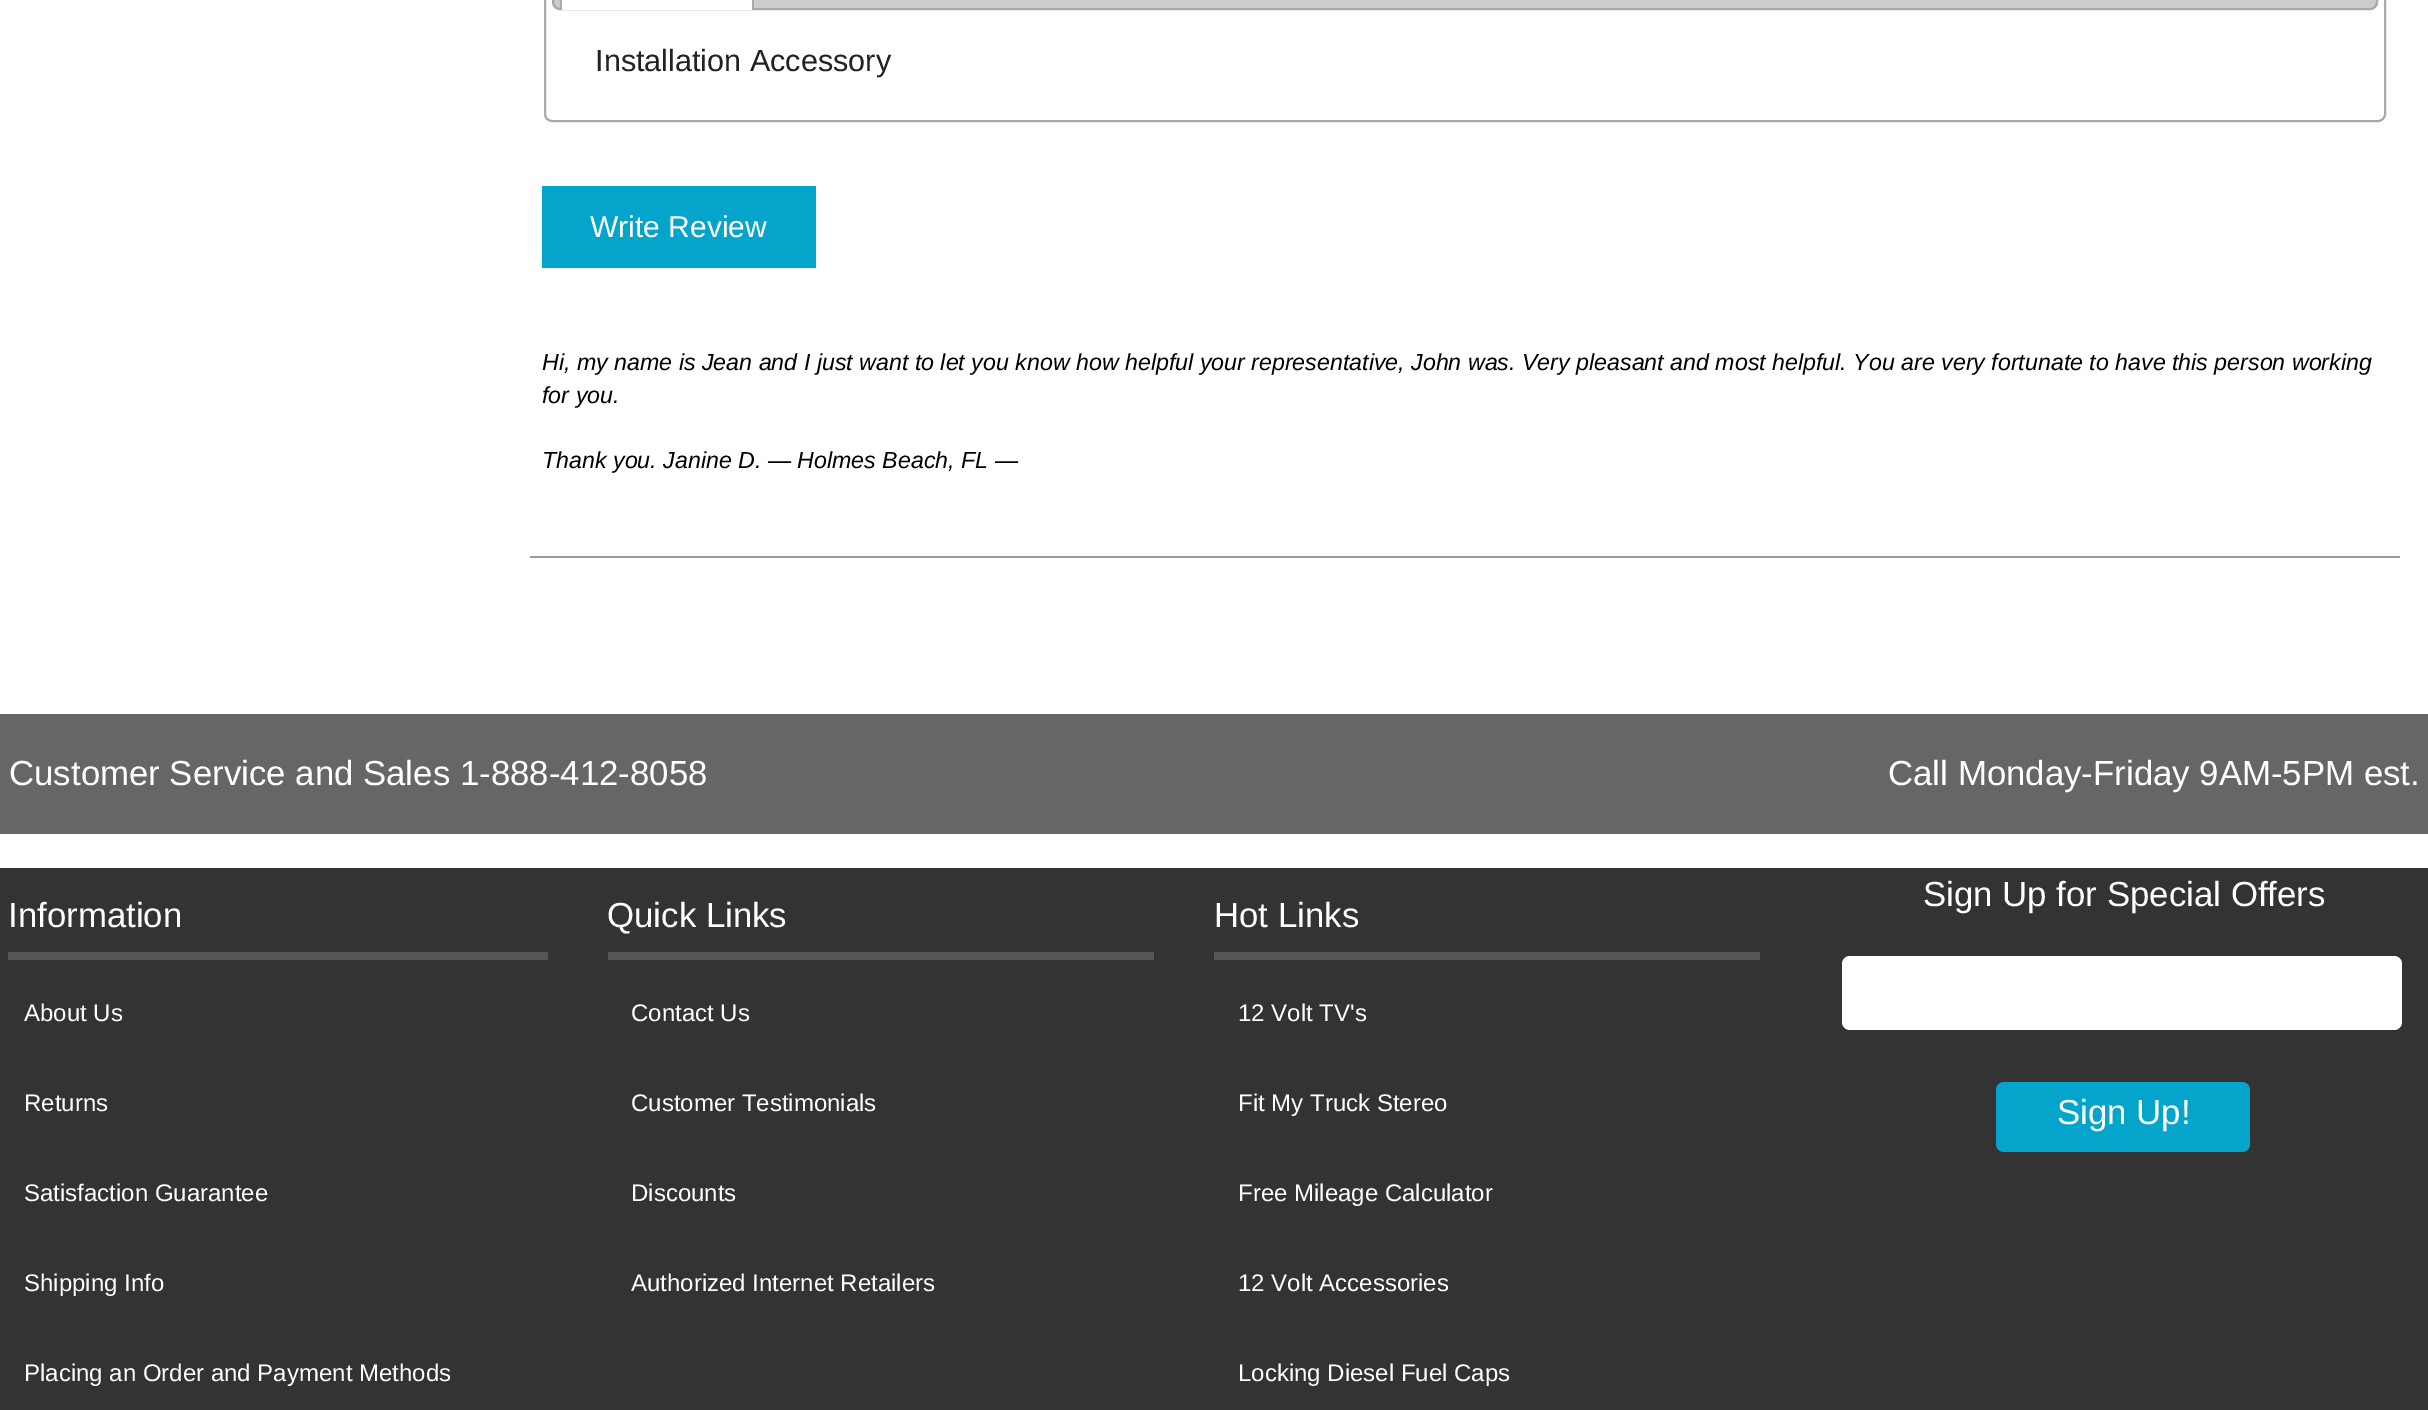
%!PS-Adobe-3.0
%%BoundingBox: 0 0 2428 1410
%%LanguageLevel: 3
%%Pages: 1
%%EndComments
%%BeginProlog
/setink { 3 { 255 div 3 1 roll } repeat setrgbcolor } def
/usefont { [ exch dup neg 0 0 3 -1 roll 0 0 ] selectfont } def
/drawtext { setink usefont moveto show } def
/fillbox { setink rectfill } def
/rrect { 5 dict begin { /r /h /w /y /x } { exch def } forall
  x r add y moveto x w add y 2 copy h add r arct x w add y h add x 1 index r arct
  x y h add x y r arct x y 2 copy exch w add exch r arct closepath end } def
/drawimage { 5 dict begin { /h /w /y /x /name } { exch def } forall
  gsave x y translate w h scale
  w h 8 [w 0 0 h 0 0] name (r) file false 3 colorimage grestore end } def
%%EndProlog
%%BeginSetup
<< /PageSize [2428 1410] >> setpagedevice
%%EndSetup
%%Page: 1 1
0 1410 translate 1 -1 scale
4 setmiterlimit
0 0 2428 1410 255 255 255 fillbox
170 170 170 setink
2 setlinewidth
545 -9 1840 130 7 rrect stroke
204 204 204 setink
552 -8 1826 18 8 rrect fill
(assets/img1.rgb) 552 3 1826 7 drawimage
170 170 170 setink
553 -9 1824 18 7 rrect stroke
562 0 190 10 255 255 255 fillbox
170 170 170 setink
568 -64 moveto 746 -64 lineto 750 -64 754 -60 754 -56 curveto 754 10 lineto 560 10 lineto 560 -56 lineto 560 -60 564 -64 568 -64 curveto closepath 568 -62 moveto 746 -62 lineto 749 -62 752 -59 752 -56 curveto 752 10 lineto 562 10 lineto 562 -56 lineto 562 -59 565 -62 568 -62 curveto closepath eofill
(Installation Accessory) 595 71 /LiberationSans-Regular 30.6 34 34 34 drawtext
542 186 274 82 5 165 203 fillbox
(Write Review) 590 237 /LiberationSans-Regular 30 255 255 255 drawtext
(Hi, my name is Jean and I just want to let you know how helpful your representative, John was. Very pleasant and most helpful. You are very fortunate to have this person working) 542 370 /LiberationSans-Italic 23.2 0 0 0 drawtext
(for you.) 542 403 /LiberationSans-Italic 23.2 0 0 0 drawtext
(Thank you. Janine D. — Holmes Beach, FL —) 542 468 /LiberationSans-Italic 23.2 0 0 0 drawtext
530 556 1870 2 154 154 154 fillbox
0 714 2428 120 102 102 102 fillbox
(Customer Service and Sales 1-888-412-8058) 9 785 /LiberationSans-Regular 34.8 255 255 255 drawtext
(Call Monday-Friday 9AM-5PM est.) 1888 785 /LiberationSans-Regular 34.8 255 255 255 drawtext
0 868 2428 542 51 51 51 fillbox
(Information) 8 927 /LiberationSans-Regular 34.8 255 255 255 drawtext
8 952 540 8 87 84 84 fillbox
(About Us) 24 1021 /LiberationSans-Regular 24 255 255 255 drawtext
(Returns) 24 1111 /LiberationSans-Regular 24 255 255 255 drawtext
(Satisfaction Guarantee) 24 1201 /LiberationSans-Regular 24 255 255 255 drawtext
(Shipping Info) 24 1291 /LiberationSans-Regular 24 255 255 255 drawtext
(Placing an Order and Payment Methods) 24 1381 /LiberationSans-Regular 24 255 255 255 drawtext
(Quick Links) 607 927 /LiberationSans-Regular 34.8 255 255 255 drawtext
608 952 546 8 87 84 84 fillbox
(Contact Us) 631 1021 /LiberationSans-Regular 24 255 255 255 drawtext
(Customer Testimonials) 631 1111 /LiberationSans-Regular 24 255 255 255 drawtext
(Discounts) 631 1201 /LiberationSans-Regular 24 255 255 255 drawtext
(Authorized Internet Retailers) 631 1291 /LiberationSans-Regular 24 255 255 255 drawtext
(Hot Links) 1214 927 /LiberationSans-Regular 34.8 255 255 255 drawtext
1214 952 546 8 87 84 84 fillbox
(12 Volt TV's) 1238 1021 /LiberationSans-Regular 24 255 255 255 drawtext
(Fit My Truck Stereo) 1238 1111 /LiberationSans-Regular 24 255 255 255 drawtext
(Free Mileage Calculator) 1238 1201 /LiberationSans-Regular 24 255 255 255 drawtext
(12 Volt Accessories) 1238 1291 /LiberationSans-Regular 24 255 255 255 drawtext
(Locking Diesel Fuel Caps) 1238 1381 /LiberationSans-Regular 24 255 255 255 drawtext
(Sign Up for Special Offers) 1923 906 /LiberationSans-Regular 34.8 255 255 255 drawtext
1842 956 560 74 8 rrect fill
5 165 203 setink
1996 1082 254 70 8 rrect fill
(Sign Up!) 2057 1124 /LiberationSans-Regular 34.8 255 255 255 drawtext
showpage
%%EOF
